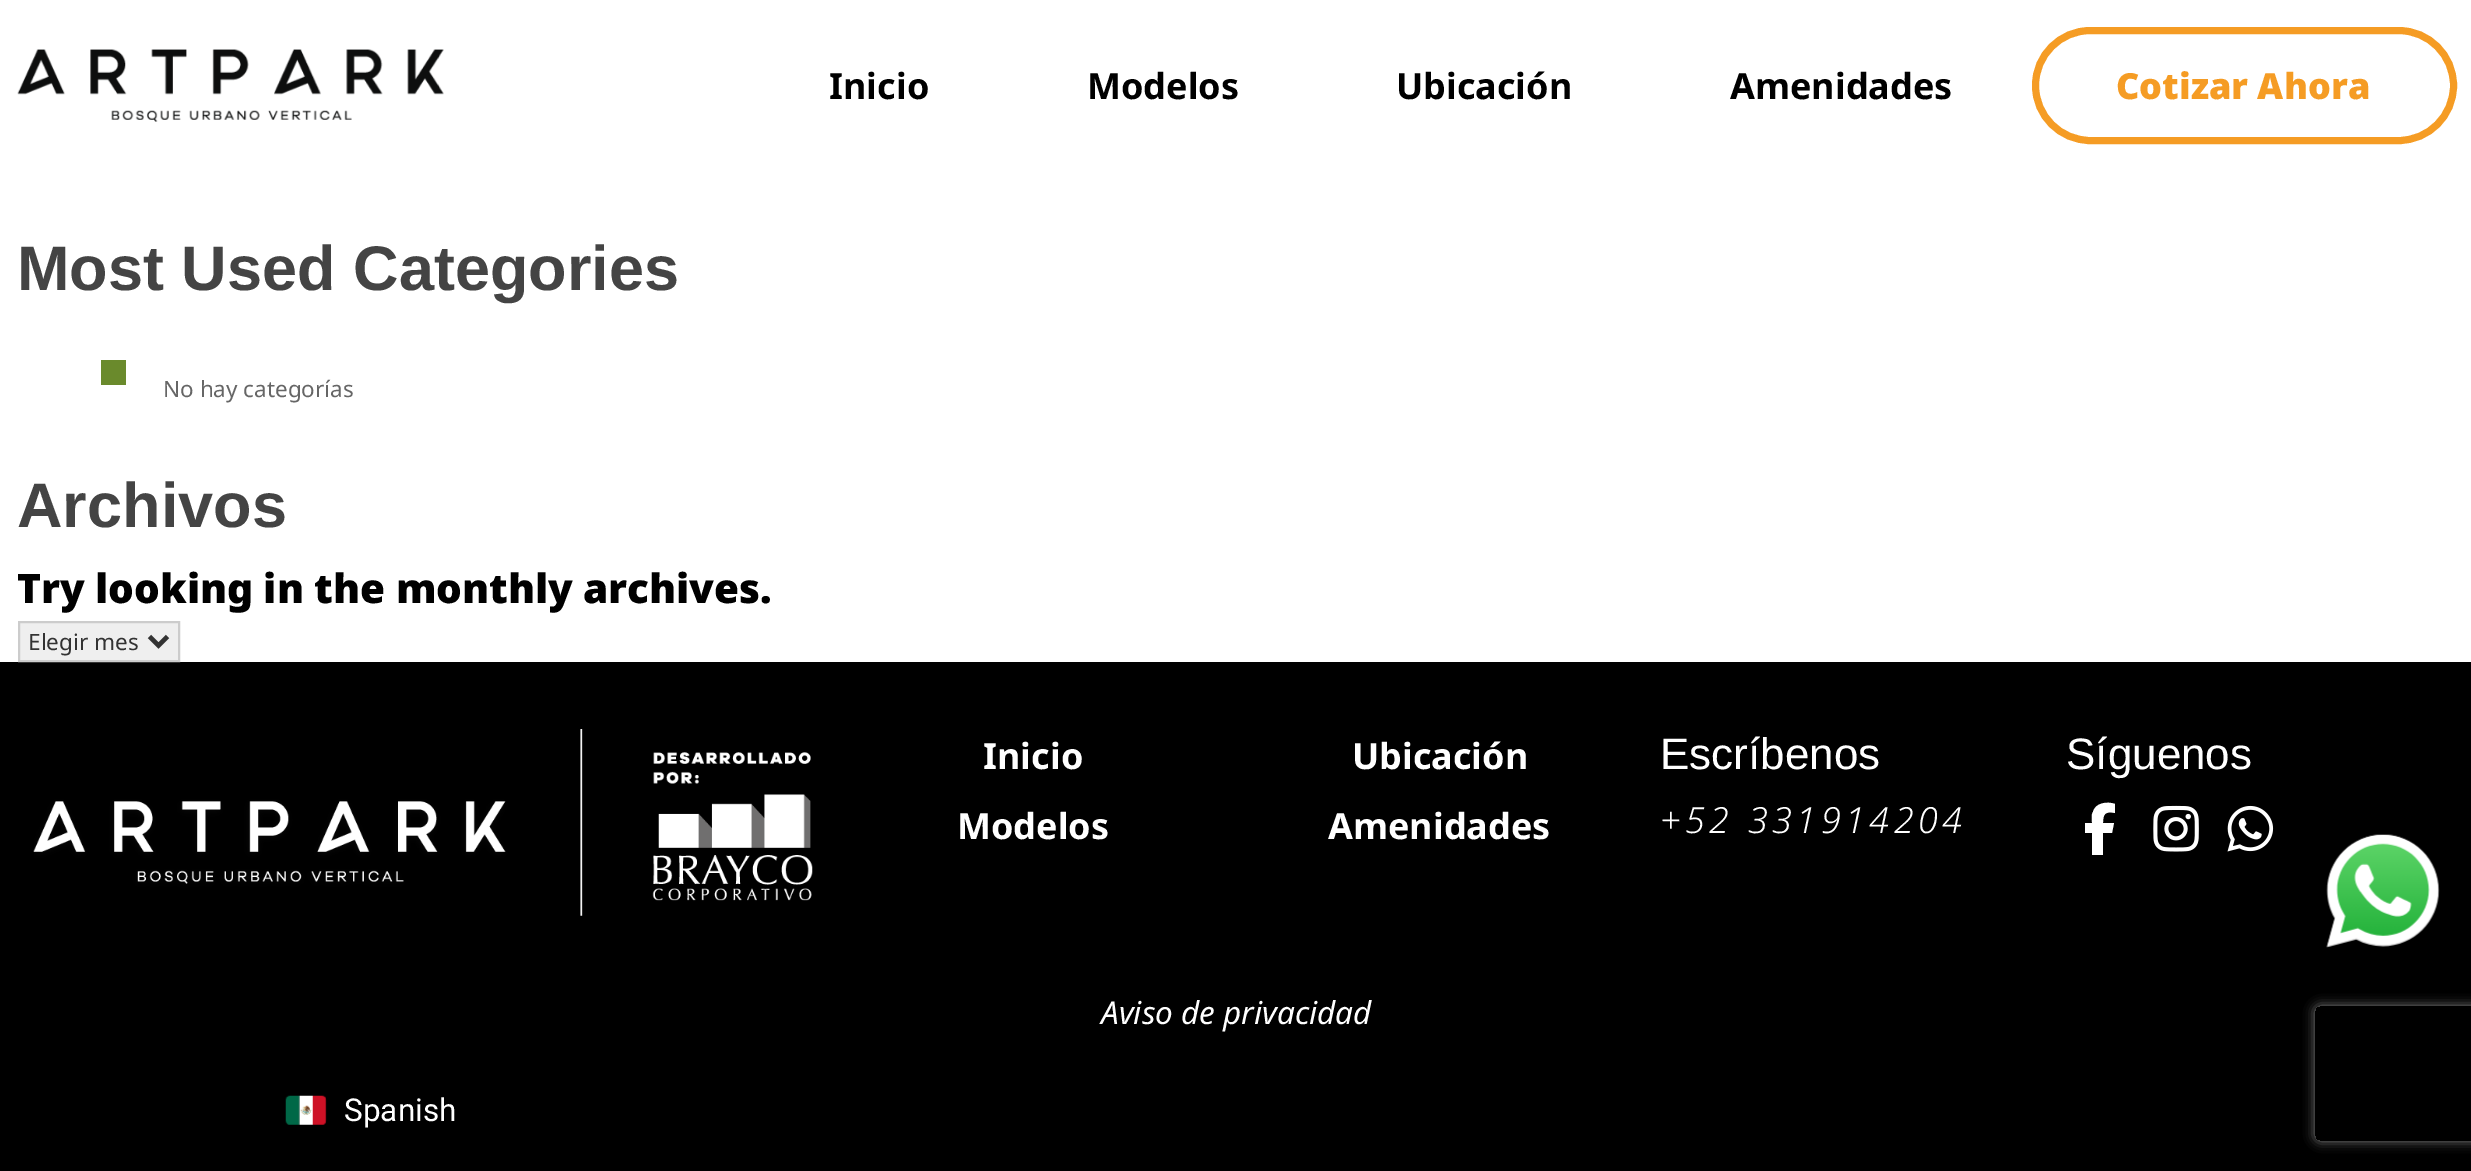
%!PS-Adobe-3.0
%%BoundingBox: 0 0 2471 1171
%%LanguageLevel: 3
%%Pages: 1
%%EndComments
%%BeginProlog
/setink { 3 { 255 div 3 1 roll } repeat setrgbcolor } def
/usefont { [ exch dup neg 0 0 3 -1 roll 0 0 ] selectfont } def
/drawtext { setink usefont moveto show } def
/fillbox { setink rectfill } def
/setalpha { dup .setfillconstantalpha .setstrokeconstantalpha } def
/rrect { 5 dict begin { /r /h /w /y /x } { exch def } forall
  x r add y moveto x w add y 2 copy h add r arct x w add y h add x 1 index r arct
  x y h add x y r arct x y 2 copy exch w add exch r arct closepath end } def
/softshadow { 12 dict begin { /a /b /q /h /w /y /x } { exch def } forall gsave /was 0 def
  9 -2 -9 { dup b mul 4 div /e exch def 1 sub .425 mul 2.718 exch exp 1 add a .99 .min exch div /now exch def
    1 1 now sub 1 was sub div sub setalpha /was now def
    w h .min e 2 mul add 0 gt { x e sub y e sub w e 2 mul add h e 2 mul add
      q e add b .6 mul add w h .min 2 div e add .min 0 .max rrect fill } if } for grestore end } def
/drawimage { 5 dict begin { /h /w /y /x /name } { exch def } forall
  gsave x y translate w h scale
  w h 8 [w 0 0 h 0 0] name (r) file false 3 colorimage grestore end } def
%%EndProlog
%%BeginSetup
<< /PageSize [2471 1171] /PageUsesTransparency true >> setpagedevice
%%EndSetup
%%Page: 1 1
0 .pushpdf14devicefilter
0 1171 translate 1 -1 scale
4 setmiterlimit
0 0 2471 1171 0 0 0 fillbox
0 0 2471 662 255 255 255 fillbox
(assets/img1.rgb) 17 49 427 73 drawimage
(Inicio) 829 99 /NotoSans-Bold 36 0 0 0 drawtext
(Modelos) 1087 99 /NotoSans-Bold 36 0 0 0 drawtext
(Ubicación) 1396 99 /NotoSans-Bold 36 0 0 0 drawtext
(Amenidades) 1730 99 /NotoSans-Bold 36 0 0 0 drawtext
245 156 36 setink
7 setlinewidth
2035.5 30.5 418 110 55 rrect stroke
(Cotizar Ahora) 2116 99 /NotoSans-Black 36 245 156 36 drawtext
(Most Used Categories) 17 290 /LiberationSans-Bold 63 68 68 68 drawtext
101 360 25 25 106 138 44 fillbox
(No hay categorías) 163 397 /NotoSans-Regular 22.5 102 102 102 drawtext
(Archivos) 17 527 /LiberationSans-Bold 63 68 68 68 drawtext
(Try looking in the monthly archives.) 17 603 /NotoSans-Black 40.5 0 0 0 drawtext
239 239 239 setink
19 622 moveto 179 622 lineto 179 661 lineto 19 661 lineto closepath gsave fill grestore
204 204 204 setink
2 setlinewidth
stroke
51 51 51 setink
4.5 setlinewidth
149.5 636.5 moveto 158.5 645.5 lineto 167.5 636.5 lineto stroke
(Elegir mes) 28 650 /NotoSans-Regular 22.5 51 51 51 drawtext
(assets/img2.rgb) 33 729 780 187 drawimage
(Inicio) 983 769 /NotoSans-Bold 36 255 255 255 drawtext
(Modelos) 957 839 /NotoSans-Bold 36 255 255 255 drawtext
(Ubicación) 1352 769 /NotoSans-Bold 36 255 255 255 drawtext
(Amenidades) 1328 839 /NotoSans-Bold 36 255 255 255 drawtext
(Escríbenos) 1660 769 /LiberationSans-Regular 44 255 255 255 drawtext
/NotoSans-LightItalic 36 usefont
1660 833 moveto 4.5 0 (+52 331914204) ashow
(Síguenos) 2066 769 /LiberationSans-Regular 44 255 255 255 drawtext
2092 833 moveto 2092 855 lineto 2103 855 lineto 2103 833 lineto 2112 833 lineto 2114 823 lineto 2103 823 lineto 2103 814 2105 811 2115 813 curveto 2115 804 lineto 2107 801 2095 803 2093 812 curveto 2091 815 2092 819 2092 823 curveto 2085 823 lineto 2085 833 lineto closepath fill
(assets/img3.rgb) 2153 805 46 47 drawimage
(assets/img4.rgb) 2227 805 47 47 drawimage
(Aviso de privacidad) 1101 1024 /NotoSans-Italic 31.5 255 255 255 drawtext
(assets/img5.rgb) 2326 834 114 114 drawimage
(assets/img6.rgb) 285 1095 42 30 drawimage
(Spanish) 344 1121 /Roboto-Regular 31.5 255 255 255 drawtext
gsave
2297 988 moveto 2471 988 lineto 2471 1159 lineto 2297 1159 lineto closepath 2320 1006 moveto 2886 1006 lineto 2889 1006 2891 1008 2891 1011 curveto 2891 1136 lineto 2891 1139 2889 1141 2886 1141 curveto 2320 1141 lineto 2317 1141 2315 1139 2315 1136 curveto 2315 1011 lineto 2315 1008 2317 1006 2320 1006 curveto closepath eoclip newpath
128 128 128 setink
2315 1006 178 135 5 5.5 1 softshadow
grestore
.poppdf14devicefilter showpage
%%EOF
